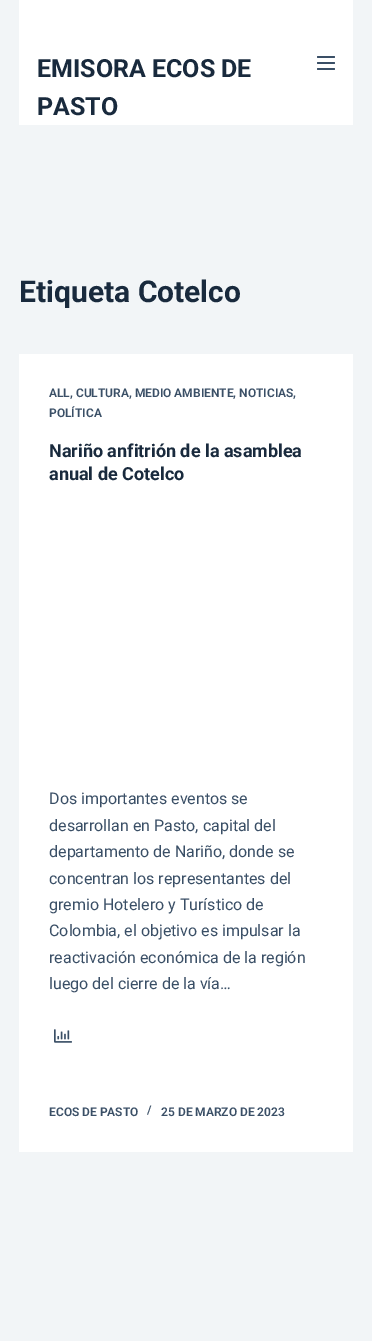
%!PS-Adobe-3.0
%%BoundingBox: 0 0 372 1341
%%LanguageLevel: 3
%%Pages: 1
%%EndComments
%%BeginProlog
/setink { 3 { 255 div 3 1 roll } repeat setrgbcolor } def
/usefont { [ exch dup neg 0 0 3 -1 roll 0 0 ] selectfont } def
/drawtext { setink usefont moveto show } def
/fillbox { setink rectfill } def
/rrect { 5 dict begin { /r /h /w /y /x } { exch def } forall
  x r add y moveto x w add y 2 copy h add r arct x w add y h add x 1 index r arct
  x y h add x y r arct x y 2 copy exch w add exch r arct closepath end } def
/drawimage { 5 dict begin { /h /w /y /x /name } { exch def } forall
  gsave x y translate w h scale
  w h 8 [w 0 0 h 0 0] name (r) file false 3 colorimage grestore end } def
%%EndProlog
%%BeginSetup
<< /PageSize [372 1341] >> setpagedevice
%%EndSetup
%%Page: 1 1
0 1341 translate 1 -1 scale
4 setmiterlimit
0 0 372 1341 242 245 247 fillbox
19 0 334 125 255 255 255 fillbox
(EMISORA ECOS DE) 37 77 /Roboto-Bold 25 25 42 61 drawtext
(PASTO) 37 115 /Roboto-Bold 25 25 42 61 drawtext
58 79 102 setink
317 56 18 2 1 rrect fill
317 62 18 2 1 rrect fill
317 68 18 2 1 rrect fill
(Etiqueta Cotelco) 19 302 /Roboto-Bold 30 25 42 61 drawtext
19 354 334 798 255 255 255 fillbox
(ALL, CULTURA, MEDIO AMBIENTE, NOTICIAS,) 49 397 /Roboto-SemiBold 12 58 79 102 drawtext
(POLÍTICA) 49 417 /Roboto-SemiBold 12 58 79 102 drawtext
(Nariño anfitrión de la asamblea) 49 457 /Roboto-Bold 18 25 42 61 drawtext
(anual de Cotelco) 49 480 /Roboto-Bold 18 25 42 61 drawtext
(Dos importantes eventos se) 49 804 /Roboto-Regular 16 58 79 102 drawtext
(desarrollan en Pasto, capital del) 49 831 /Roboto-Regular 16 58 79 102 drawtext
(departamento de Nariño, donde se) 49 857 /Roboto-Regular 16 58 79 102 drawtext
(concentran los representantes del) 49 884 /Roboto-Regular 16 58 79 102 drawtext
(gremio Hotelero y Turístico de) 49 910 /Roboto-Regular 16 58 79 102 drawtext
(Colombia, el objetivo es impulsar la) 49 936 /Roboto-Regular 16 58 79 102 drawtext
(reactivación económica de la región) 49 963 /Roboto-Regular 16 58 79 102 drawtext
(luego del cierre de la vía…) 49 989 /Roboto-Regular 16 58 79 102 drawtext
(assets/img1.rgb) 54 1029 18 14 drawimage
(ECOS DE PASTO) 49 1116 /Roboto-SemiBold 12 58 79 102 drawtext
(/) 147 1114 /Roboto-SemiBold 12 58 79 102 drawtext
(25 DE MARZO DE 2023) 161 1116 /Roboto-SemiBold 12 58 79 102 drawtext
showpage
%%EOF
